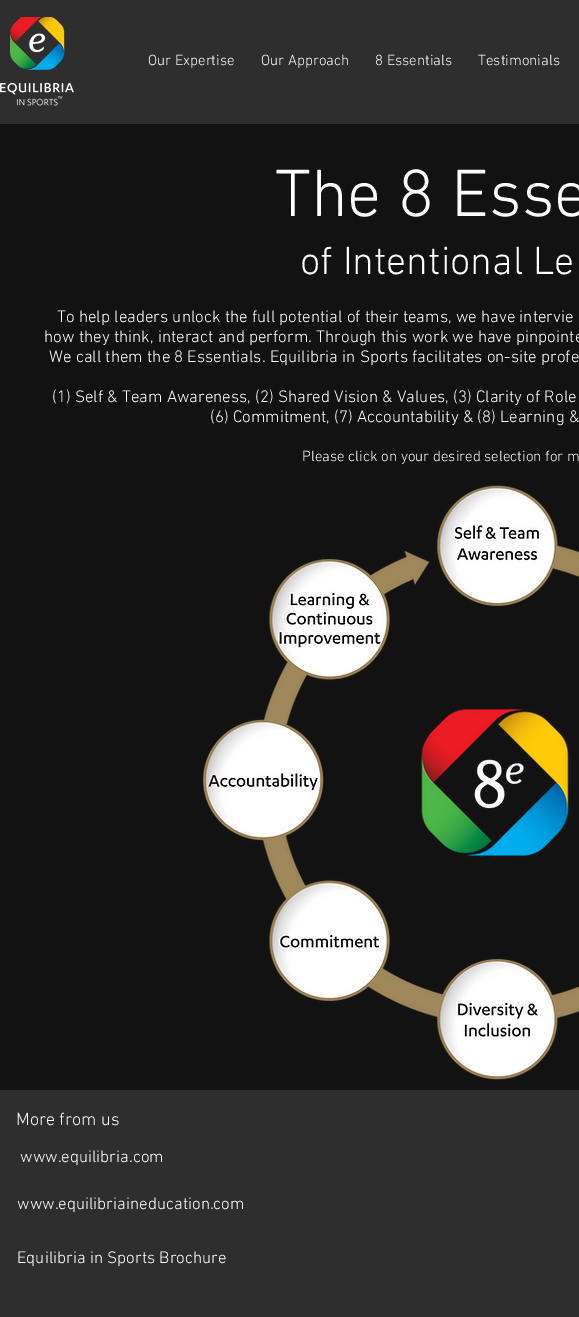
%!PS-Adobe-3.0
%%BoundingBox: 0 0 579 1317
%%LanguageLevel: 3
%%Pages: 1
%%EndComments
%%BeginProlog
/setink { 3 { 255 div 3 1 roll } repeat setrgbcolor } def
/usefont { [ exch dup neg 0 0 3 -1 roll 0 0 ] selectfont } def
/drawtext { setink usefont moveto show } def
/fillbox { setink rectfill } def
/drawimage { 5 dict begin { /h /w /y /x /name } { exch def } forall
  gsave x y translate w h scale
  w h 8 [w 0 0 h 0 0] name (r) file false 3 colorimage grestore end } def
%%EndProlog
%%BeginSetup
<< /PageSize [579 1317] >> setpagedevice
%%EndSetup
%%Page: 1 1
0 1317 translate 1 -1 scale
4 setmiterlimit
0 0 579 1317 47 46 46 fillbox
(assets/img1.rgb) 0 17 74 89 drawimage
(Our Expertise) 148 65 /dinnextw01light-Light 15 255 255 255 drawtext
(Our Approach) 261 65 /dinnextw01light-Light 15 255 255 255 drawtext
(8 Essentials) 375 65 /dinnextw01light-Light 15 255 255 255 drawtext
(Testimonials) 478 65 /dinnextw01light-Light 15 255 255 255 drawtext
0 124 579 966 19 18 18 fillbox
(The 8 Esse) 275 216 /dinnextw01light-Light 68 255 255 255 drawtext
(of Intentional Le) 300 274 /dinnextw01light-Light 40 255 255 255 drawtext
(To help leaders unlock the full potential of their teams, we have intervie) 57 322 /dinnextw01light-Light 17 255 255 255 drawtext
(how they think, interact and perform. Through this work we have pinpointe) 44 342 /dinnextw01light-Light 17 255 255 255 drawtext
(We call them the 8 Essentials. Equilibria in Sports facilitates on-site profe) 49 362 /dinnextw01light-Light 17 255 255 255 drawtext
(\(1\) Self & Team Awareness, \(2\) Shared Vision & Values, \(3\) Clarity of Role) 52 402 /dinnextw01light-Light 17 255 255 255 drawtext
(\(6\) Commitment, \(7\) Accountability & \(8\) Learning &) 210 422 /dinnextw01light-Light 17 255 255 255 drawtext
(Please click on your desired selection for m) 302 461 /dinnextw01light-Light 15 255 255 255 drawtext
(assets/img2.rgb) 203 485 376 595 drawimage
(More from us) 16 1125 /dinnextw01light-Light 18 255 255 255 drawtext
(www.equilibria.com) 20 1162 /dinnextw01light-Light 17 255 255 255 drawtext
(www.equilibriaineducation.com) 17 1209 /dinnextw01light-Light 17 255 255 255 drawtext
(Equilibria in Sports Brochure) 17 1263 /dinnextw01light-Light 17 255 255 255 drawtext
showpage
%%EOF
